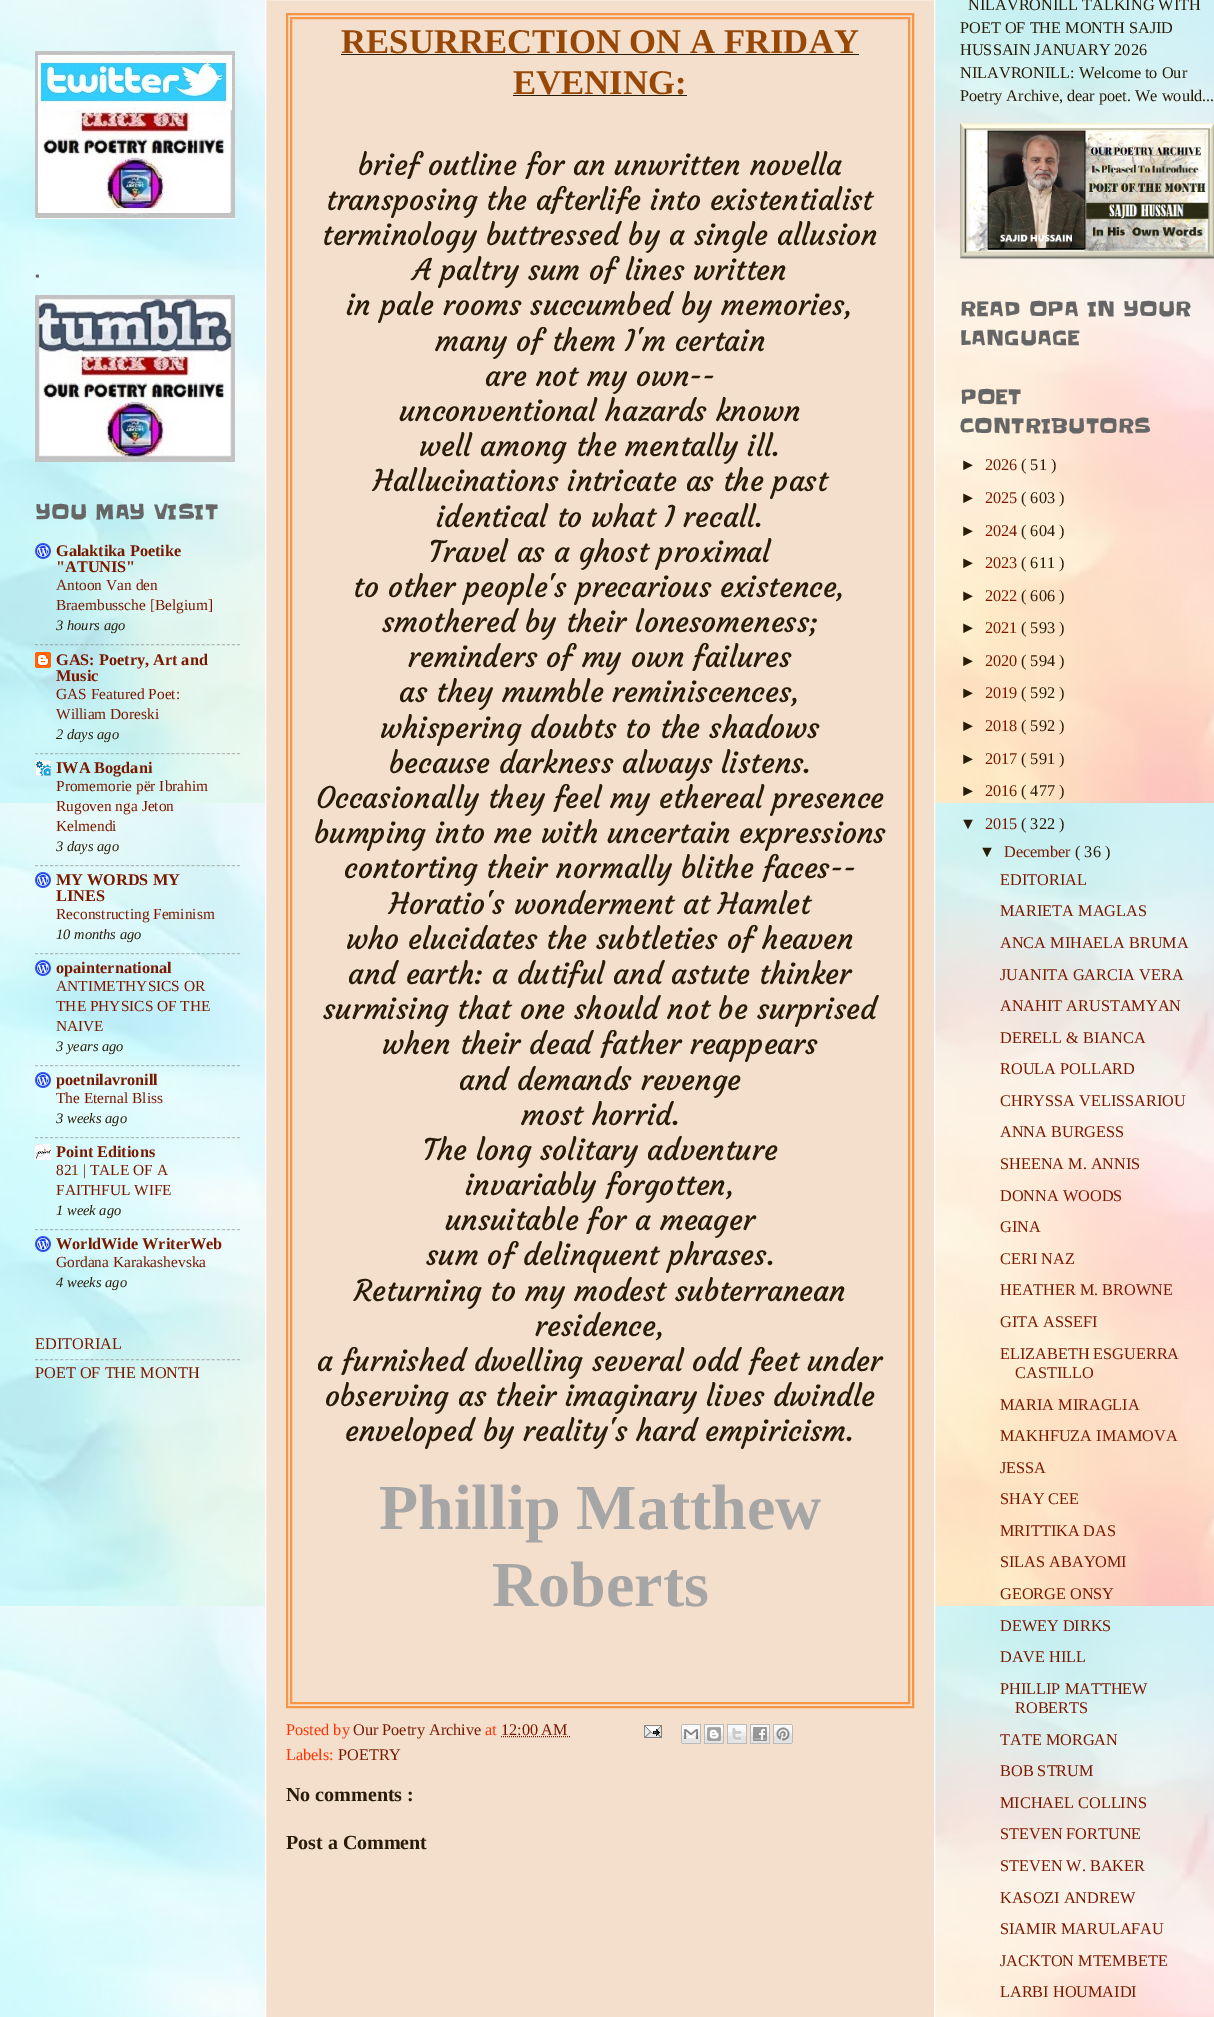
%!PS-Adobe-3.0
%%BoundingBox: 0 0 1214 2017
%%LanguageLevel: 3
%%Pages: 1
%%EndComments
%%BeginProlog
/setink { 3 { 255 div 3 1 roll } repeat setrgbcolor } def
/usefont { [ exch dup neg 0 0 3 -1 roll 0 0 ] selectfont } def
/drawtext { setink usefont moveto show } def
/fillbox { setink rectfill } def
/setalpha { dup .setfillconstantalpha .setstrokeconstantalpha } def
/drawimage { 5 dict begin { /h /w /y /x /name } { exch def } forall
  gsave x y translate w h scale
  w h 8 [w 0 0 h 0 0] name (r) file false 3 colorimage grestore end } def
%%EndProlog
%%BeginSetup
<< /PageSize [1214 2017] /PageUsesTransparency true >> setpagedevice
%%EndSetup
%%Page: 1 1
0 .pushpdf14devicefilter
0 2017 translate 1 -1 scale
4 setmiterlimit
0 0 1214 2017 255 255 255 fillbox
(assets/img1.rgb) 0 0 1214 2017 drawimage
(assets/img2.rgb) 35 51 200 168 drawimage
(.) 35 277 /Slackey-Regular 20 102 102 102 drawtext
(assets/img3.rgb) 35 295 200 167 drawimage
(YOU MAY VISIT) 35 519 /Slackey-Regular 20 102 102 102 drawtext
(assets/img4.rgb) 35 543 16 16 drawimage
(Galaktika Poetike) 56 556 /LiberationSerif-Bold 16.25 121 25 0 drawtext
("ATUNIS") 56 572 /LiberationSerif-Bold 16.25 121 25 0 drawtext
(Antoon Van den) 56 590 /LiberationSerif-Regular 15.4 121 25 0 drawtext
(Braembussche [Belgium]) 56 610 /LiberationSerif-Regular 15.4 121 25 0 drawtext
(3 hours ago) 56 630 /LiberationSerif-Italic 14.5 40 28 7 drawtext
0.5 setalpha
128 128 128 setink
[3 2.05] 0 setdash
35 644.5 moveto 240 644.5 lineto stroke
1 setalpha
(assets/img5.rgb) 35 652 16 16 drawimage
(GAS: Poetry, Art and) 56 665 /LiberationSerif-Bold 16.25 121 25 0 drawtext
(Music) 56 681 /LiberationSerif-Bold 16.25 121 25 0 drawtext
(GAS Featured Poet:) 56 699 /LiberationSerif-Regular 15.4 121 25 0 drawtext
(William Doreski) 56 719 /LiberationSerif-Regular 15.4 121 25 0 drawtext
(2 days ago) 56 739 /LiberationSerif-Italic 14.5 40 28 7 drawtext
0.5 setalpha
128 128 128 setink
35 753.5 moveto 240 753.5 lineto stroke
1 setalpha
(assets/img6.rgb) 35 760 16 16 drawimage
(IWA Bogdani) 56 773 /LiberationSerif-Bold 16.25 121 25 0 drawtext
(Promemorie për Ibrahim) 56 791 /LiberationSerif-Regular 15.4 121 25 0 drawtext
(Rugoven nga Jeton) 56 811 /LiberationSerif-Regular 15.4 121 25 0 drawtext
(Kelmendi) 56 831 /LiberationSerif-Regular 15.4 121 25 0 drawtext
(3 days ago) 56 851 /LiberationSerif-Italic 14.5 40 28 7 drawtext
0.5 setalpha
128 128 128 setink
35 865.5 moveto 240 865.5 lineto stroke
1 setalpha
(assets/img7.rgb) 35 872 16 16 drawimage
(MY WORDS MY) 56 885 /LiberationSerif-Bold 16.25 121 25 0 drawtext
(LINES) 56 901 /LiberationSerif-Bold 16.25 121 25 0 drawtext
(Reconstructing Feminism) 56 919 /LiberationSerif-Regular 15.4 121 25 0 drawtext
(10 months ago) 56 939 /LiberationSerif-Italic 14.5 40 28 7 drawtext
0.5 setalpha
128 128 128 setink
35 953.5 moveto 240 953.5 lineto stroke
1 setalpha
(assets/img8.rgb) 35 960 16 16 drawimage
(opainternational) 56 973 /LiberationSerif-Bold 16.25 121 25 0 drawtext
(ANTIMETHYSICS OR) 56 991 /LiberationSerif-Regular 15.4 121 25 0 drawtext
(THE PHYSICS OF THE) 56 1011 /LiberationSerif-Regular 15.4 121 25 0 drawtext
(NAIVE) 56 1031 /LiberationSerif-Regular 15.4 121 25 0 drawtext
(3 years ago) 56 1051 /LiberationSerif-Italic 14.5 40 28 7 drawtext
0.5 setalpha
128 128 128 setink
35 1065.5 moveto 240 1065.5 lineto stroke
1 setalpha
(assets/img9.rgb) 35 1072 16 16 drawimage
(poetnilavronill) 56 1085 /LiberationSerif-Bold 16.25 121 25 0 drawtext
(The Eternal Bliss) 56 1103 /LiberationSerif-Regular 15.4 121 25 0 drawtext
(3 weeks ago) 56 1123 /LiberationSerif-Italic 14.5 40 28 7 drawtext
0.5 setalpha
128 128 128 setink
35 1137.5 moveto 240 1137.5 lineto stroke
1 setalpha
(assets/img10.rgb) 35 1144 16 16 drawimage
(Point Editions) 56 1157 /LiberationSerif-Bold 16.25 121 25 0 drawtext
(821 | TALE OF A) 56 1175 /LiberationSerif-Regular 15.4 121 25 0 drawtext
(FAITHFUL WIFE) 56 1195 /LiberationSerif-Regular 15.4 121 25 0 drawtext
(1 week ago) 56 1215 /LiberationSerif-Italic 14.5 40 28 7 drawtext
0.5 setalpha
128 128 128 setink
35 1229.5 moveto 240 1229.5 lineto stroke
1 setalpha
(assets/img11.rgb) 35 1236 16 16 drawimage
(WorldWide WriterWeb) 56 1249 /LiberationSerif-Bold 16.25 121 25 0 drawtext
(Gordana Karakashevska) 56 1267 /LiberationSerif-Regular 15.4 121 25 0 drawtext
(4 weeks ago) 56 1287 /LiberationSerif-Italic 14.5 40 28 7 drawtext
(EDITORIAL) 35 1349 /LiberationSerif-Regular 16.25 121 25 0 drawtext
0.5 setalpha
128 128 128 setink
35 1359.5 moveto 240 1359.5 lineto stroke
1 setalpha
(POET OF THE MONTH) 35 1378 /LiberationSerif-Regular 16.25 121 25 0 drawtext
244 223 204 setink
265.5 -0.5 moveto 934.5 -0.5 lineto 934.5 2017.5 lineto 265.5 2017.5 lineto closepath gsave fill grestore
255 255 255 setink
[] 0 setdash
stroke
247 150 70 setink
2 setlinewidth
287 14 626 1693 rectstroke
291 18 618 1685 rectstroke
(RESURRECTION ON A FRIDAY) 341 53 /LiberationSerif-Bold 34.7 152 72 6 drawtext
341 54 518 1 40 28 7 fillbox
(EVENING:) 513 94 /LiberationSerif-Bold 34.7 152 72 6 drawtext
513 95 174 1 40 28 7 fillbox
(brief outline for an unwritten novella) 358 175 /Courgette-Regular 29.3 40 28 7 drawtext
(transposing the afterlife into existentialist) 326 210 /Courgette-Regular 29.3 40 28 7 drawtext
(terminology buttressed by a single allusion) 322 245 /Courgette-Regular 29.3 40 28 7 drawtext
(A paltry sum of lines written) 413 280 /Courgette-Regular 29.3 40 28 7 drawtext
(in pale rooms succumbed by memories,) 346 315 /Courgette-Regular 29.3 40 28 7 drawtext
(many of them I'm certain) 435 351 /Courgette-Regular 29.3 40 28 7 drawtext
(are not my own--) 485 386 /Courgette-Regular 29.3 40 28 7 drawtext
(unconventional hazards known) 399 421 /Courgette-Regular 29.3 40 28 7 drawtext
(well among the mentally ill.) 419 456 /Courgette-Regular 29.3 40 28 7 drawtext
(Hallucinations intricate as the past) 373 491 /Courgette-Regular 29.3 40 28 7 drawtext
(identical to what I recall.) 436 527 /Courgette-Regular 29.3 40 28 7 drawtext
(Travel as a ghost proximal) 429 562 /Courgette-Regular 29.3 40 28 7 drawtext
(to other people's precarious existence,) 353 597 /Courgette-Regular 29.3 40 28 7 drawtext
(smothered by their lonesomeness;) 382 632 /Courgette-Regular 29.3 40 28 7 drawtext
(reminders of my own failures) 408 667 /Courgette-Regular 29.3 40 28 7 drawtext
(as they mumble reminiscences,) 399 702 /Courgette-Regular 29.3 40 28 7 drawtext
(whispering doubts to the shadows) 380 738 /Courgette-Regular 29.3 40 28 7 drawtext
(because darkness always listens.) 389 773 /Courgette-Regular 29.3 40 28 7 drawtext
(Occasionally they feel my ethereal presence) 316 808 /Courgette-Regular 29.3 40 28 7 drawtext
(bumping into me with uncertain expressions) 314 843 /Courgette-Regular 29.3 40 28 7 drawtext
(contorting their normally blithe faces--) 344 878 /Courgette-Regular 29.3 40 28 7 drawtext
(Horatio's wonderment at Hamlet) 389 914 /Courgette-Regular 29.3 40 28 7 drawtext
(who elucidates the subtleties of heaven) 346 949 /Courgette-Regular 29.3 40 28 7 drawtext
(and earth: a dutiful and astute thinker) 348 984 /Courgette-Regular 29.3 40 28 7 drawtext
(surmising that one should not be surprised) 323 1019 /Courgette-Regular 29.3 40 28 7 drawtext
(when their dead father reappears) 382 1054 /Courgette-Regular 29.3 40 28 7 drawtext
(and demands revenge) 459 1090 /Courgette-Regular 29.3 40 28 7 drawtext
(most horrid.) 521 1125 /Courgette-Regular 29.3 40 28 7 drawtext
(The long solitary adventure) 423 1160 /Courgette-Regular 29.3 40 28 7 drawtext
(invariably forgotten,) 465 1195 /Courgette-Regular 29.3 40 28 7 drawtext
(unsuitable for a meager) 445 1230 /Courgette-Regular 29.3 40 28 7 drawtext
(sum of delinquent phrases.) 426 1265 /Courgette-Regular 29.3 40 28 7 drawtext
(Returning to my modest subterranean) 354 1301 /Courgette-Regular 29.3 40 28 7 drawtext
(residence,) 535 1336 /Courgette-Regular 29.3 40 28 7 drawtext
(a furnished dwelling several odd feet under) 317 1371 /Courgette-Regular 29.3 40 28 7 drawtext
(observing as their imaginary lives dwindle) 325 1406 /Courgette-Regular 29.3 40 28 7 drawtext
(enveloped by reality's hard empiricism.) 345 1441 /Courgette-Regular 29.3 40 28 7 drawtext
(Phillip Matthew) 379 1529 /LiberationSerif-Bold 64 166 166 166 drawtext
(Roberts) 492 1606 /LiberationSerif-Bold 64 166 166 166 drawtext
(Posted by) 286 1735 /LiberationSerif-Regular 16.25 255 50 0 drawtext
(Our Poetry Archive) 353 1735 /LiberationSerif-Regular 16.25 121 25 0 drawtext
(at) 485 1735 /LiberationSerif-Regular 16.25 255 50 0 drawtext
(12:00 AM) 501 1735 /LiberationSerif-Regular 16.25 121 25 0 drawtext
1 setlinewidth
[1 1] 0 setdash
501 1736.5 moveto 571 1736.5 lineto stroke
(assets/img12.rgb) 644 1725 18 13 drawimage
(assets/img13.rgb) 681 1724 20 20 drawimage
(assets/img14.rgb) 704 1724 20 20 drawimage
(assets/img15.rgb) 727 1724 20 20 drawimage
(assets/img16.rgb) 750 1724 20 20 drawimage
(assets/img17.rgb) 773 1724 20 20 drawimage
(Labels:) 286 1760 /LiberationSerif-Regular 16.25 255 50 0 drawtext
(POETRY) 338 1760 /LiberationSerif-Regular 16.25 121 25 0 drawtext
(No comments :) 286 1801 /LiberationSerif-Bold 20 40 28 7 drawtext
(Post a Comment) 286 1849 /LiberationSerif-Bold 20 40 28 7 drawtext
(NILAVRONILL TALKING WITH) 968 10 /LiberationSerif-Regular 16.25 40 28 7 drawtext
(POET OF THE MONTH SAJID) 960 33 /LiberationSerif-Regular 16.25 40 28 7 drawtext
(HUSSAIN JANUARY 2026) 960 55 /LiberationSerif-Regular 16.25 40 28 7 drawtext
(NILAVRONILL: Welcome to Our) 960 78 /LiberationSerif-Regular 16.25 40 28 7 drawtext
(Poetry Archive, dear poet. We would...) 960 101 /LiberationSerif-Regular 16.25 40 28 7 drawtext
(assets/img18.rgb) 960 123 254 136 drawimage
(READ OPA IN YOUR) 960 316 /Slackey-Regular 20 102 102 102 drawtext
(LANGUAGE) 960 345 /Slackey-Regular 20 102 102 102 drawtext
(POET) 960 404 /Slackey-Regular 20 102 102 102 drawtext
(CONTRIBUTORS) 960 433 /Slackey-Regular 20 102 102 102 drawtext
(►) 960 470 /LiberationSans-Regular 16.25 40 28 7 drawtext
(2026) 985 470 /LiberationSerif-Regular 16.25 121 25 0 drawtext
(\( 51 \)) 1021 470 /LiberationSerif-Regular 16.25 40 28 7 drawtext
(►) 960 503 /LiberationSans-Regular 16.25 40 28 7 drawtext
(2025) 985 503 /LiberationSerif-Regular 16.25 121 25 0 drawtext
(\( 603 \)) 1021 503 /LiberationSerif-Regular 16.25 40 28 7 drawtext
(►) 960 536 /LiberationSans-Regular 16.25 40 28 7 drawtext
(2024) 985 536 /LiberationSerif-Regular 16.25 121 25 0 drawtext
(\( 604 \)) 1021 536 /LiberationSerif-Regular 16.25 40 28 7 drawtext
(►) 960 568 /LiberationSans-Regular 16.25 40 28 7 drawtext
(2023) 985 568 /LiberationSerif-Regular 16.25 121 25 0 drawtext
(\( 611 \)) 1021 568 /LiberationSerif-Regular 16.25 40 28 7 drawtext
(►) 960 601 /LiberationSans-Regular 16.25 40 28 7 drawtext
(2022) 985 601 /LiberationSerif-Regular 16.25 121 25 0 drawtext
(\( 606 \)) 1021 601 /LiberationSerif-Regular 16.25 40 28 7 drawtext
(►) 960 633 /LiberationSans-Regular 16.25 40 28 7 drawtext
(2021) 985 633 /LiberationSerif-Regular 16.25 121 25 0 drawtext
(\( 593 \)) 1021 633 /LiberationSerif-Regular 16.25 40 28 7 drawtext
(►) 960 666 /LiberationSans-Regular 16.25 40 28 7 drawtext
(2020) 985 666 /LiberationSerif-Regular 16.25 121 25 0 drawtext
(\( 594 \)) 1021 666 /LiberationSerif-Regular 16.25 40 28 7 drawtext
(►) 960 698 /LiberationSans-Regular 16.25 40 28 7 drawtext
(2019) 985 698 /LiberationSerif-Regular 16.25 121 25 0 drawtext
(\( 592 \)) 1021 698 /LiberationSerif-Regular 16.25 40 28 7 drawtext
(►) 960 731 /LiberationSans-Regular 16.25 40 28 7 drawtext
(2018) 985 731 /LiberationSerif-Regular 16.25 121 25 0 drawtext
(\( 592 \)) 1021 731 /LiberationSerif-Regular 16.25 40 28 7 drawtext
(►) 960 764 /LiberationSans-Regular 16.25 40 28 7 drawtext
(2017) 985 764 /LiberationSerif-Regular 16.25 121 25 0 drawtext
(\( 591 \)) 1021 764 /LiberationSerif-Regular 16.25 40 28 7 drawtext
(►) 960 796 /LiberationSans-Regular 16.25 40 28 7 drawtext
(2016) 985 796 /LiberationSerif-Regular 16.25 121 25 0 drawtext
(\( 477 \)) 1021 796 /LiberationSerif-Regular 16.25 40 28 7 drawtext
(▼) 960 829 /LiberationSans-Regular 16.25 40 28 7 drawtext
(2015) 985 829 /LiberationSerif-Regular 16.25 121 25 0 drawtext
(\( 322 \)) 1021 829 /LiberationSerif-Regular 16.25 40 28 7 drawtext
(▼) 979 857 /LiberationSans-Regular 16.25 40 28 7 drawtext
(December) 1004 857 /LiberationSerif-Regular 16.25 121 25 0 drawtext
(\( 36 \)) 1075 857 /LiberationSerif-Regular 16.25 40 28 7 drawtext
(EDITORIAL) 1000 885 /LiberationSerif-Regular 16.25 121 25 0 drawtext
(MARIETA MAGLAS) 1000 916 /LiberationSerif-Regular 16.25 121 25 0 drawtext
(ANCA MIHAELA BRUMA) 1000 948 /LiberationSerif-Regular 16.25 121 25 0 drawtext
(JUANITA GARCIA VERA) 1000 980 /LiberationSerif-Regular 16.25 121 25 0 drawtext
(ANAHIT ARUSTAMYAN) 1000 1011 /LiberationSerif-Regular 16.25 121 25 0 drawtext
(DERELL & BIANCA) 1000 1043 /LiberationSerif-Regular 16.25 121 25 0 drawtext
(ROULA POLLARD) 1000 1074 /LiberationSerif-Regular 16.25 121 25 0 drawtext
(CHRYSSA VELISSARIOU) 1000 1106 /LiberationSerif-Regular 16.25 121 25 0 drawtext
(ANNA BURGESS) 1000 1137 /LiberationSerif-Regular 16.25 121 25 0 drawtext
(SHEENA M. ANNIS) 1000 1169 /LiberationSerif-Regular 16.25 121 25 0 drawtext
(DONNA WOODS) 1000 1201 /LiberationSerif-Regular 16.25 121 25 0 drawtext
(GINA) 1000 1232 /LiberationSerif-Regular 16.25 121 25 0 drawtext
(CERI NAZ) 1000 1264 /LiberationSerif-Regular 16.25 121 25 0 drawtext
(HEATHER M. BROWNE) 1000 1295 /LiberationSerif-Regular 16.25 121 25 0 drawtext
(GITA ASSEFI) 1000 1327 /LiberationSerif-Regular 16.25 121 25 0 drawtext
(ELIZABETH ESGUERRA) 1000 1359 /LiberationSerif-Regular 16.25 121 25 0 drawtext
(CASTILLO) 1015 1378 /LiberationSerif-Regular 16.25 121 25 0 drawtext
(MARIA MIRAGLIA) 1000 1410 /LiberationSerif-Regular 16.25 121 25 0 drawtext
(MAKHFUZA IMAMOVA) 1000 1441 /LiberationSerif-Regular 16.25 121 25 0 drawtext
(JESSA) 1000 1473 /LiberationSerif-Regular 16.25 121 25 0 drawtext
(SHAY CEE) 1000 1504 /LiberationSerif-Regular 16.25 121 25 0 drawtext
(MRITTIKA DAS) 1000 1536 /LiberationSerif-Regular 16.25 121 25 0 drawtext
(SILAS ABAYOMI) 1000 1567 /LiberationSerif-Regular 16.25 121 25 0 drawtext
(GEORGE ONSY) 1000 1599 /LiberationSerif-Regular 16.25 121 25 0 drawtext
(DEWEY DIRKS) 1000 1631 /LiberationSerif-Regular 16.25 121 25 0 drawtext
(DAVE HILL) 1000 1662 /LiberationSerif-Regular 16.25 121 25 0 drawtext
(PHILLIP MATTHEW) 1000 1694 /LiberationSerif-Regular 16.25 121 25 0 drawtext
(ROBERTS) 1015 1713 /LiberationSerif-Regular 16.25 121 25 0 drawtext
(TATE MORGAN) 1000 1745 /LiberationSerif-Regular 16.25 121 25 0 drawtext
(BOB STRUM) 1000 1776 /LiberationSerif-Regular 16.25 121 25 0 drawtext
(MICHAEL COLLINS) 1000 1808 /LiberationSerif-Regular 16.25 121 25 0 drawtext
(STEVEN FORTUNE) 1000 1839 /LiberationSerif-Regular 16.25 121 25 0 drawtext
(STEVEN W. BAKER) 1000 1871 /LiberationSerif-Regular 16.25 121 25 0 drawtext
(KASOZI ANDREW) 1000 1903 /LiberationSerif-Regular 16.25 121 25 0 drawtext
(SIAMIR MARULAFAU) 1000 1934 /LiberationSerif-Regular 16.25 121 25 0 drawtext
(JACKTON MTEMBETE) 1000 1966 /LiberationSerif-Regular 16.25 121 25 0 drawtext
(LARBI HOUMAIDI) 1000 1997 /LiberationSerif-Regular 16.25 121 25 0 drawtext
.poppdf14devicefilter showpage
%%EOF
